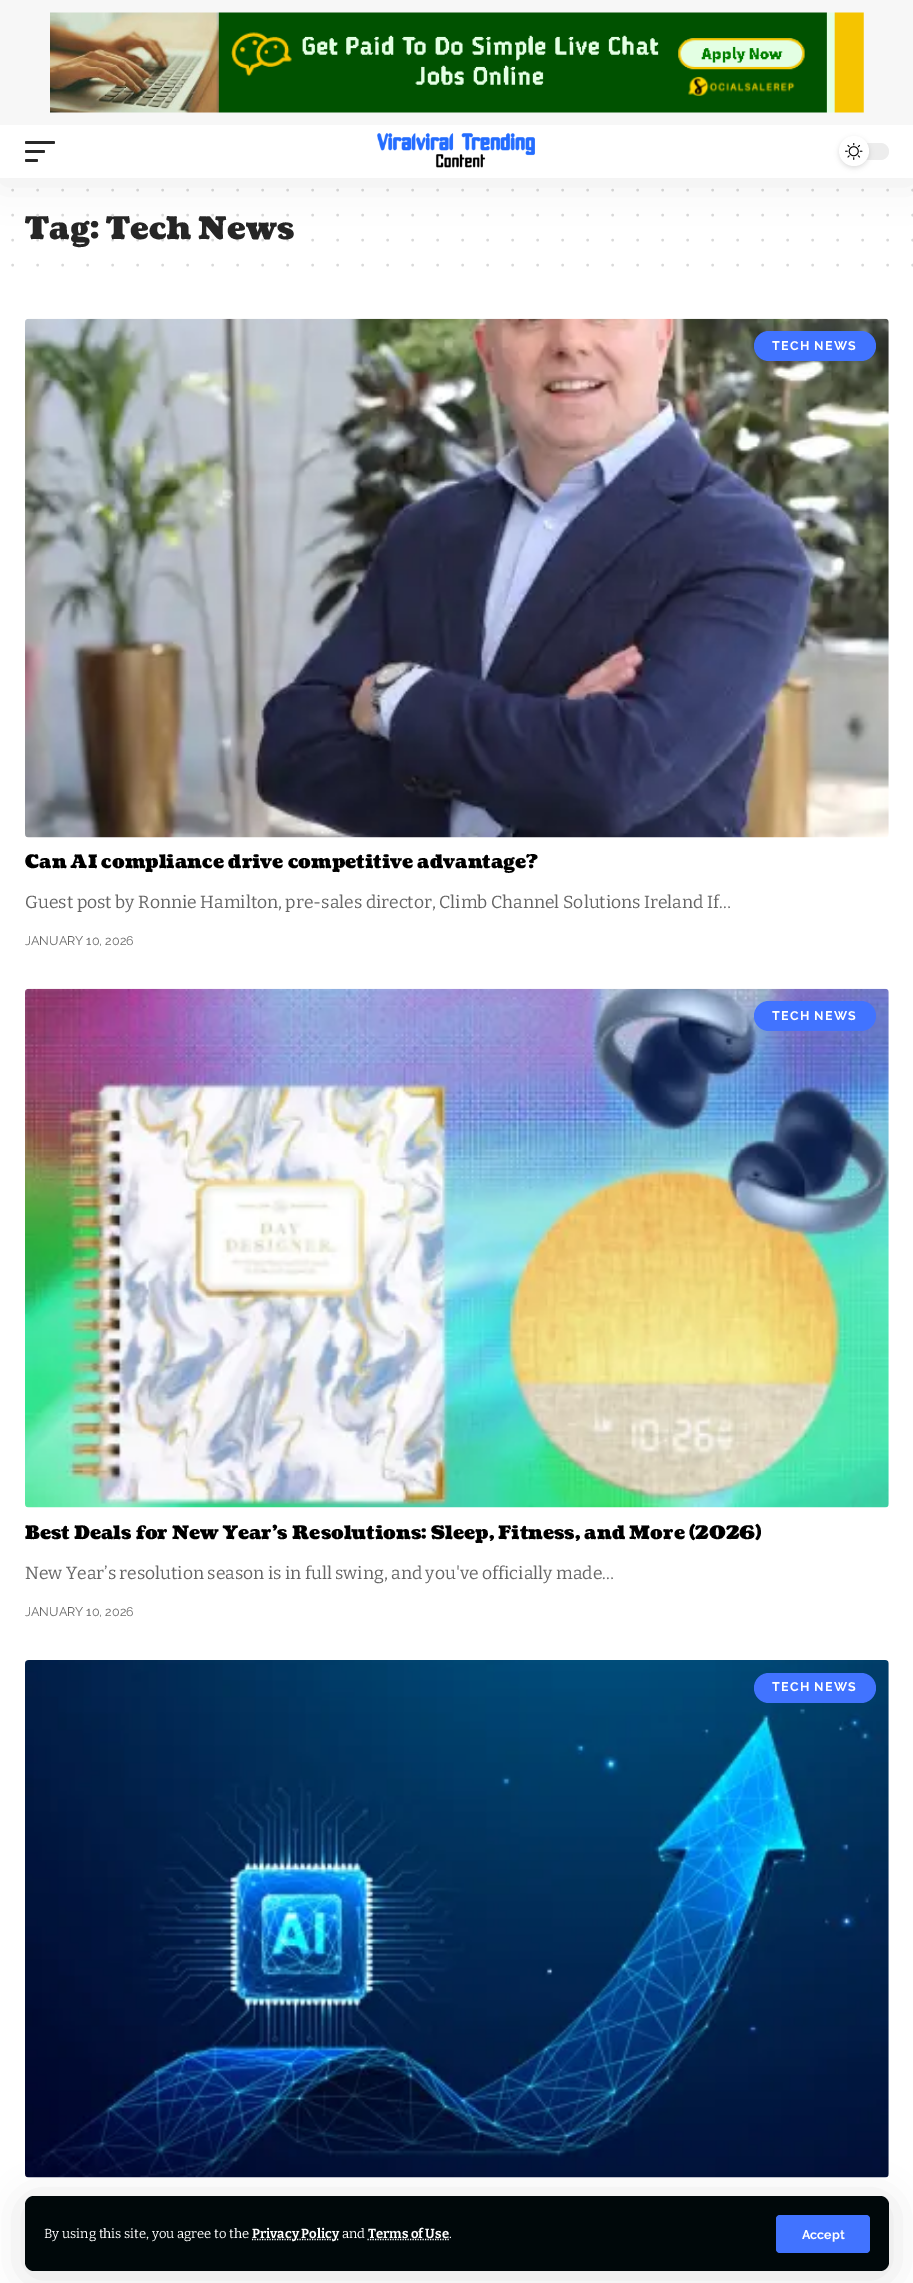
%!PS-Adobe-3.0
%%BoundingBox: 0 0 913 2283
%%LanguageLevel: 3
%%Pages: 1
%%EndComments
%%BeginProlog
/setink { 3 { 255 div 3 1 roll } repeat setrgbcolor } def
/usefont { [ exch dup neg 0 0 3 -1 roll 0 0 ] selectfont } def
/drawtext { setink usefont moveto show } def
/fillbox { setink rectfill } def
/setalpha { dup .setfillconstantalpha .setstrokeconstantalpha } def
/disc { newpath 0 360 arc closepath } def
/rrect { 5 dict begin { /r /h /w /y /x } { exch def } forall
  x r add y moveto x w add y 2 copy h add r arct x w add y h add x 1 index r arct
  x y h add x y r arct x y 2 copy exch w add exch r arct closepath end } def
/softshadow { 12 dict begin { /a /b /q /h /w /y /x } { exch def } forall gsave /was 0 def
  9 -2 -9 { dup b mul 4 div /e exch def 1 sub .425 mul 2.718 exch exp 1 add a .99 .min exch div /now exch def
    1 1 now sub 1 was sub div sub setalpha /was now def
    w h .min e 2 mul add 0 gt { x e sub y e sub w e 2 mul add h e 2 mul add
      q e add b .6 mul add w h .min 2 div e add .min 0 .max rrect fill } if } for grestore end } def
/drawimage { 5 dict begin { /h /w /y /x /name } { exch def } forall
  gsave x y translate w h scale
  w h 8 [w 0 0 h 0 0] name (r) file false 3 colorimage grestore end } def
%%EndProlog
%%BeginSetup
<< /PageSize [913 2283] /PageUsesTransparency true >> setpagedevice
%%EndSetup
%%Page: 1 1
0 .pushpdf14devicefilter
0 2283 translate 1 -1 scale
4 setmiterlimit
0 0 913 2283 255 255 255 fillbox
0 0 913 125 247 247 247 fillbox
(assets/img1.rgb) 50 12 814 101 drawimage
217 217 217 setink
2.5 setlinewidth
1 setlinecap
[0 25] 0 setdash
12.5 190 moveto 912.8 190 lineto stroke
(Tag: Tech News) 25 239 /Coustard-Black 31.25 38 38 38 drawtext
217 217 217 setink
12.5 215 moveto 912.8 215 lineto stroke
0.15 setalpha
0 0 0 setink
12.5 240 moveto 912.8 240 lineto stroke
1 setalpha
217 217 217 setink
12.5 265 moveto 912.8 265 lineto stroke
(assets/img2.rgb) 25 318 864 520 drawimage
65 115 255 setink
754 331 122 30 15 rrect fill
/Raleway-Bold 12.5 usefont
255 255 255 setink
772 350 moveto 1.25 0 (TECH NEWS) ashow
(Can AI compliance drive competitive advantage?) 25 868 /Coustard-Black 18.75 0 0 0 drawtext
(Guest post by Ronnie Hamilton, pre-sales director, Climb Channel Solutions Ireland If…) 25 908 /Bitter-Regular 17.5 102 102 102 drawtext
(JANUARY 10, 2026) 25 945 /Raleway-Regular 12.5 102 102 102 drawtext
(assets/img3.rgb) 25 988 864 520 drawimage
65 115 255 setink
754 1001 122 30 15 rrect fill
/Raleway-Bold 12.5 usefont
255 255 255 setink
772 1020 moveto 1.25 0 (TECH NEWS) ashow
(Best Deals for New Year’s Resolutions: Sleep, Fitness, and More \(2026\)) 25 1539 /Coustard-Black 18.75 0 0 0 drawtext
(New Year’s resolution season is in full swing, and you've officially made…) 25 1579 /Bitter-Regular 17.5 102 102 102 drawtext
(JANUARY 10, 2026) 25 1616 /Raleway-Regular 12.5 102 102 102 drawtext
(assets/img4.rgb) 25 1660 864 518 drawimage
65 115 255 setink
754 1673 122 30 15 rrect fill
/Raleway-Bold 12.5 usefont
255 255 255 setink
772 1691 moveto 1.25 0 (TECH NEWS) ashow
gsave
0 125 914 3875 rectclip
0 0 0 setink
0 130 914 53 0 19 0.07 softshadow
grestore
0 125 913 53 255 255 255 fillbox
40 40 40 setink
25 141 30 3 1.5 rrect fill
25 150 20 3 1.5 rrect fill
25 159 13 3 1.5 rrect fill
(assets/img5.rgb) 377 133 158 35 drawimage
237 237 237 setink
839 143 50 17 8.5 rrect fill
0 0 0 setink
839 138 30 30 15 2.5 0.12 softshadow
255 255 255 setink
854 151 15 disc fill
(assets/img6.rgb) 845 143 18 17 drawimage
0 0 0 setink
25 2201 864 75 9 19 0.12 softshadow
0 8 10 setink
25 2196 864 75 9 rrect fill
(By using this site, you agree to the) 44 2238 /Bitter-Regular 13.1 255 255 255 drawtext
1.2 setlinewidth
0 setlinecap
[1.25 1.25] 0 setdash
252 2239.5 moveto 339 2239.5 lineto stroke
(Privacy Policy) 252 2238 /Bitter-Bold 13.1 255 255 255 drawtext
(and) 342 2238 /Bitter-Regular 13.1 255 255 255 drawtext
367.5 2239.5 moveto 449 2239.5 lineto stroke
(Terms of Use) 368 2238 /Bitter-Bold 13.1 255 255 255 drawtext
(.) 449 2238 /Bitter-Regular 13.1 255 255 255 drawtext
65 115 255 setink
776 2215 94 38 4 rrect fill
(Accept) 802 2239 /Raleway-Bold 12.5 255 255 255 drawtext
.poppdf14devicefilter showpage
%%EOF
